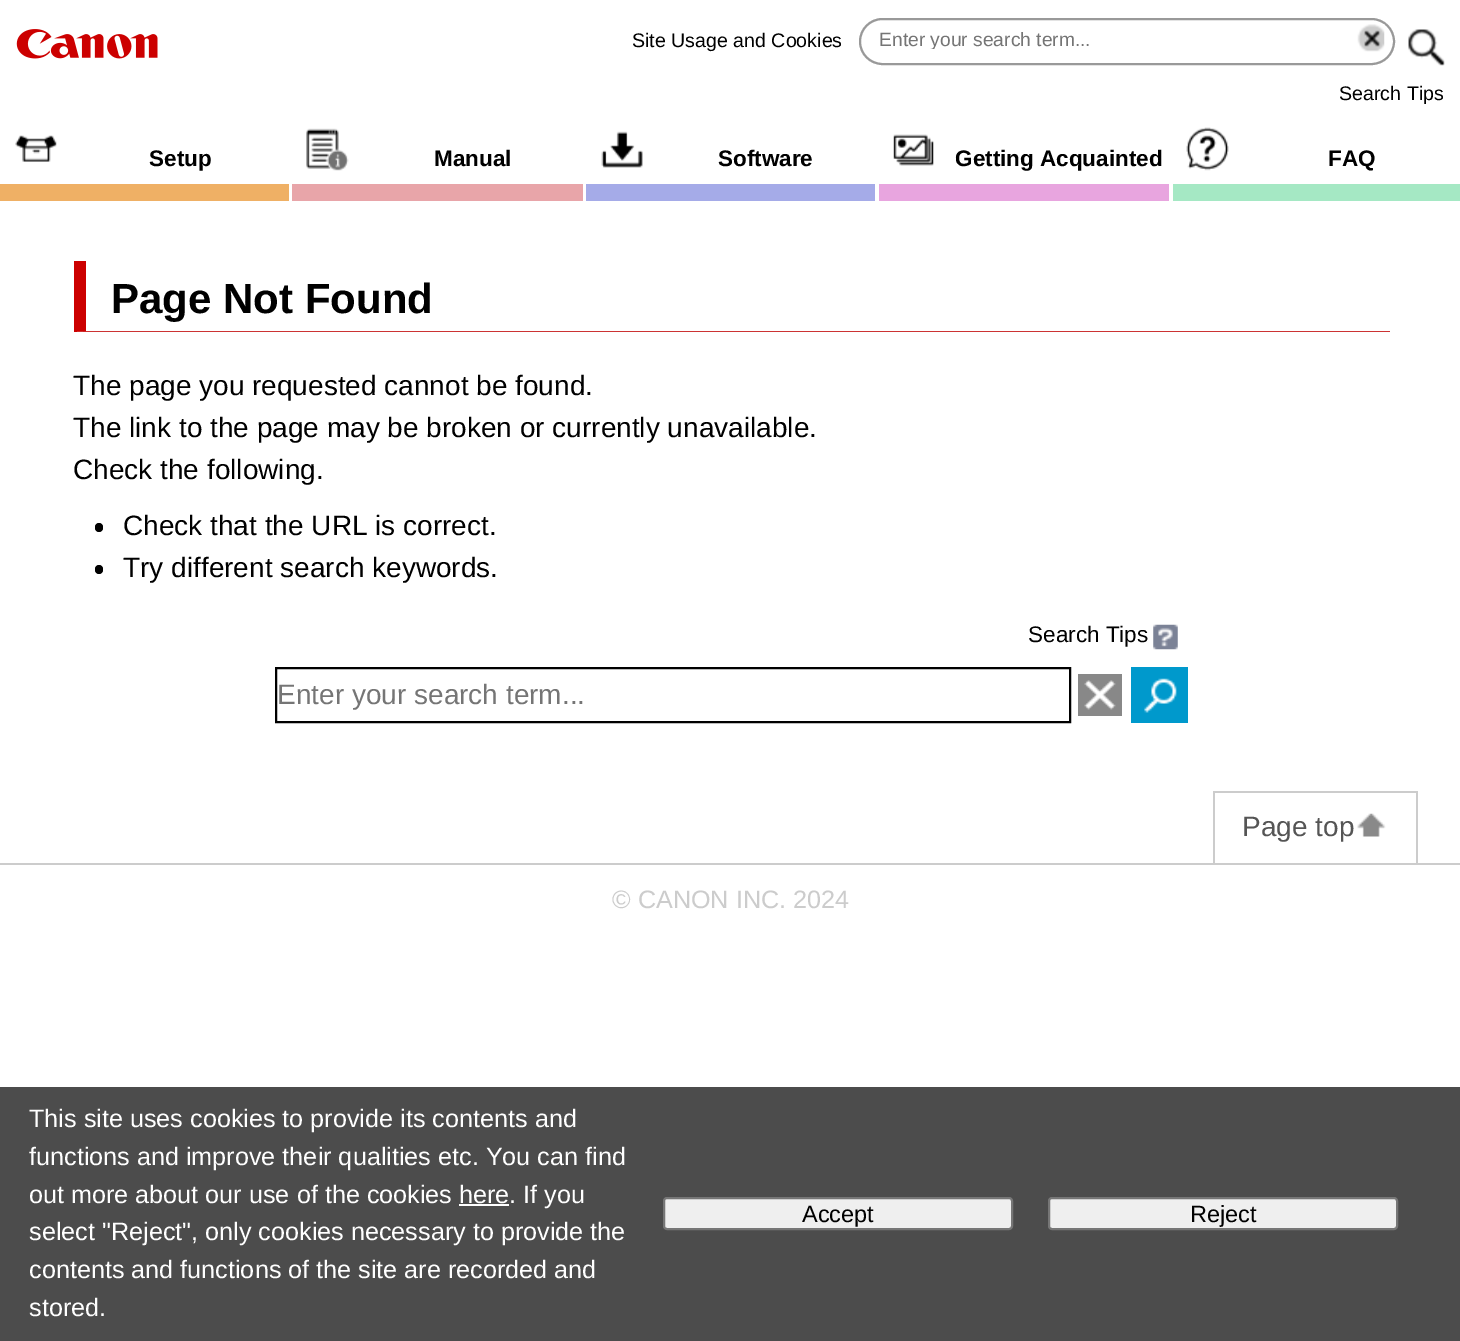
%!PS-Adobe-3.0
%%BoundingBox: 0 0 1460 1341
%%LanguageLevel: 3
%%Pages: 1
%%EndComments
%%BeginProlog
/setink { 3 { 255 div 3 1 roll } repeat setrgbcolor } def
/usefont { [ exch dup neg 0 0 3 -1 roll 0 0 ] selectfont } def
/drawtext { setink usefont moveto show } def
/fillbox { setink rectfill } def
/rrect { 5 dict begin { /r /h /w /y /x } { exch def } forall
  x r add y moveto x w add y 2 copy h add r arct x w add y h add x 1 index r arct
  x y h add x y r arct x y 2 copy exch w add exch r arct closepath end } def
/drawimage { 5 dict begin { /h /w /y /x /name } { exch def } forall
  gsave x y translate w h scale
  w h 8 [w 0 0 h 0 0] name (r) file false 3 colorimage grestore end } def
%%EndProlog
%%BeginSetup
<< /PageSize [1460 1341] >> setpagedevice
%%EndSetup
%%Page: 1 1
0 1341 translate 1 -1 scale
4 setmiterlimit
0 0 1460 1341 255 255 255 fillbox
(assets/img1.rgb) 16 29 142 30 drawimage
(Site Usage and Cookies) 632 47 /LiberationSans-Regular 19.6 0 0 0 drawtext
153 153 153 setink
2 setlinewidth
860 19 534 45 22.5 rrect stroke
gsave
879 28 472 21 rectclip
(Enter your search term...) 879 46 /LiberationSans-Regular 19.25 117 117 117 drawtext
grestore
(assets/img2.rgb) 1357 24 28 28 drawimage
(assets/img3.rgb) 1408 29 37 37 drawimage
(Search Tips) 1339 100 /LiberationSans-Regular 19.6 0 0 0 drawtext
0 184 289 17 239 176 101 fillbox
(assets/img4.rgb) 15 135 42 27 drawimage
(Setup) 149 166 /LiberationSans-Bold 22.5 0 0 0 drawtext
292 184 291 17 232 165 169 fillbox
(assets/img5.rgb) 306 128 43 43 drawimage
(Manual) 434 166 /LiberationSans-Bold 22.5 0 0 0 drawtext
586 184 289 17 165 171 232 fillbox
(assets/img6.rgb) 601 131 42 37 drawimage
(Software) 718 166 /LiberationSans-Bold 22.5 0 0 0 drawtext
879 184 290 17 232 165 223 fillbox
(assets/img7.rgb) 893 134 41 32 drawimage
(Getting Acquainted) 955 166 /LiberationSans-Bold 22.5 0 0 0 drawtext
1173 184 287 17 165 232 196 fillbox
(assets/img8.rgb) 1186 127 43 44 drawimage
(FAQ) 1328 166 /LiberationSans-Bold 22.5 0 0 0 drawtext
204 51 51 setink
1390 332 moveto 74 332 lineto 86 331 lineto 1390 331 lineto closepath fill
204 0 0 setink
74 332 moveto 74 261 lineto 86 261 lineto 86 331 lineto closepath fill
(Page Not Found) 111 313 /LiberationSans-Bold 42 0 0 0 drawtext
(The page you requested cannot be found.) 73 395 /LiberationSans-Regular 28 0 0 0 drawtext
(The link to the page may be broken or currently unavailable.) 73 437 /LiberationSans-Regular 28 0 0 0 drawtext
(Check the following.) 73 479 /LiberationSans-Regular 28 0 0 0 drawtext
95 523 8 9 4 rrect fill
(Check that the URL is correct.) 123 535 /LiberationSans-Regular 28 0 0 0 drawtext
95 565 8 9 4 rrect fill
(Try different search keywords.) 123 577 /LiberationSans-Regular 28 0 0 0 drawtext
(Search Tips) 1028 642 /LiberationSans-Regular 22.5 0 0 0 drawtext
(assets/img9.rgb) 1153 624 25 26 drawimage
276 668 794 54 rectstroke
(Enter your search term...) 277 704 /LiberationSans-Regular 28 117 117 117 drawtext
1078 674 44 42 136 136 136 fillbox
(assets/img10.rgb) 1084 680 32 30 drawimage
1131 667 57 56 0 153 204 fillbox
(assets/img11.rgb) 1144 678 33 35 drawimage
0 863 1460 2 204 204 204 fillbox
1213 791 205 2 204 204 204 fillbox
1416 791 2 72 204 204 204 fillbox
1213 791 2 72 204 204 204 fillbox
(Page top) 1242 836 /LiberationSans-Regular 28 85 85 85 drawtext
(assets/img12.rgb) 1357 813 29 24 drawimage
(© CANON INC. 2024) 612 908 /LiberationSans-Regular 25.2 204 204 204 drawtext
0 1087 1460 254 76 76 76 fillbox
(This site uses cookies to provide its contents and) 29 1127 /LiberationSans-Regular 25.2 255 255 255 drawtext
(functions and improve their qualities etc. You can find) 29 1165 /LiberationSans-Regular 25.2 255 255 255 drawtext
(out more about our use of the cookies here. If you) 29 1203 /LiberationSans-Regular 25.2 255 255 255 drawtext
459 1204 50 2 255 255 255 fillbox
(select "Reject", only cookies necessary to provide the) 29 1240 /LiberationSans-Regular 25.2 255 255 255 drawtext
(contents and functions of the site are recorded and) 29 1278 /LiberationSans-Regular 25.2 255 255 255 drawtext
(stored.) 29 1316 /LiberationSans-Regular 25.2 255 255 255 drawtext
239 239 239 setink
664 1198 348 31 3 rrect gsave fill grestore
118 118 118 setink
stroke
(Accept) 802 1222 /LiberationSans-Regular 23.5 0 0 0 drawtext
239 239 239 setink
1049 1198 348 31 3 rrect gsave fill grestore
118 118 118 setink
stroke
(Reject) 1190 1222 /LiberationSans-Regular 23.5 0 0 0 drawtext
showpage
%%EOF
